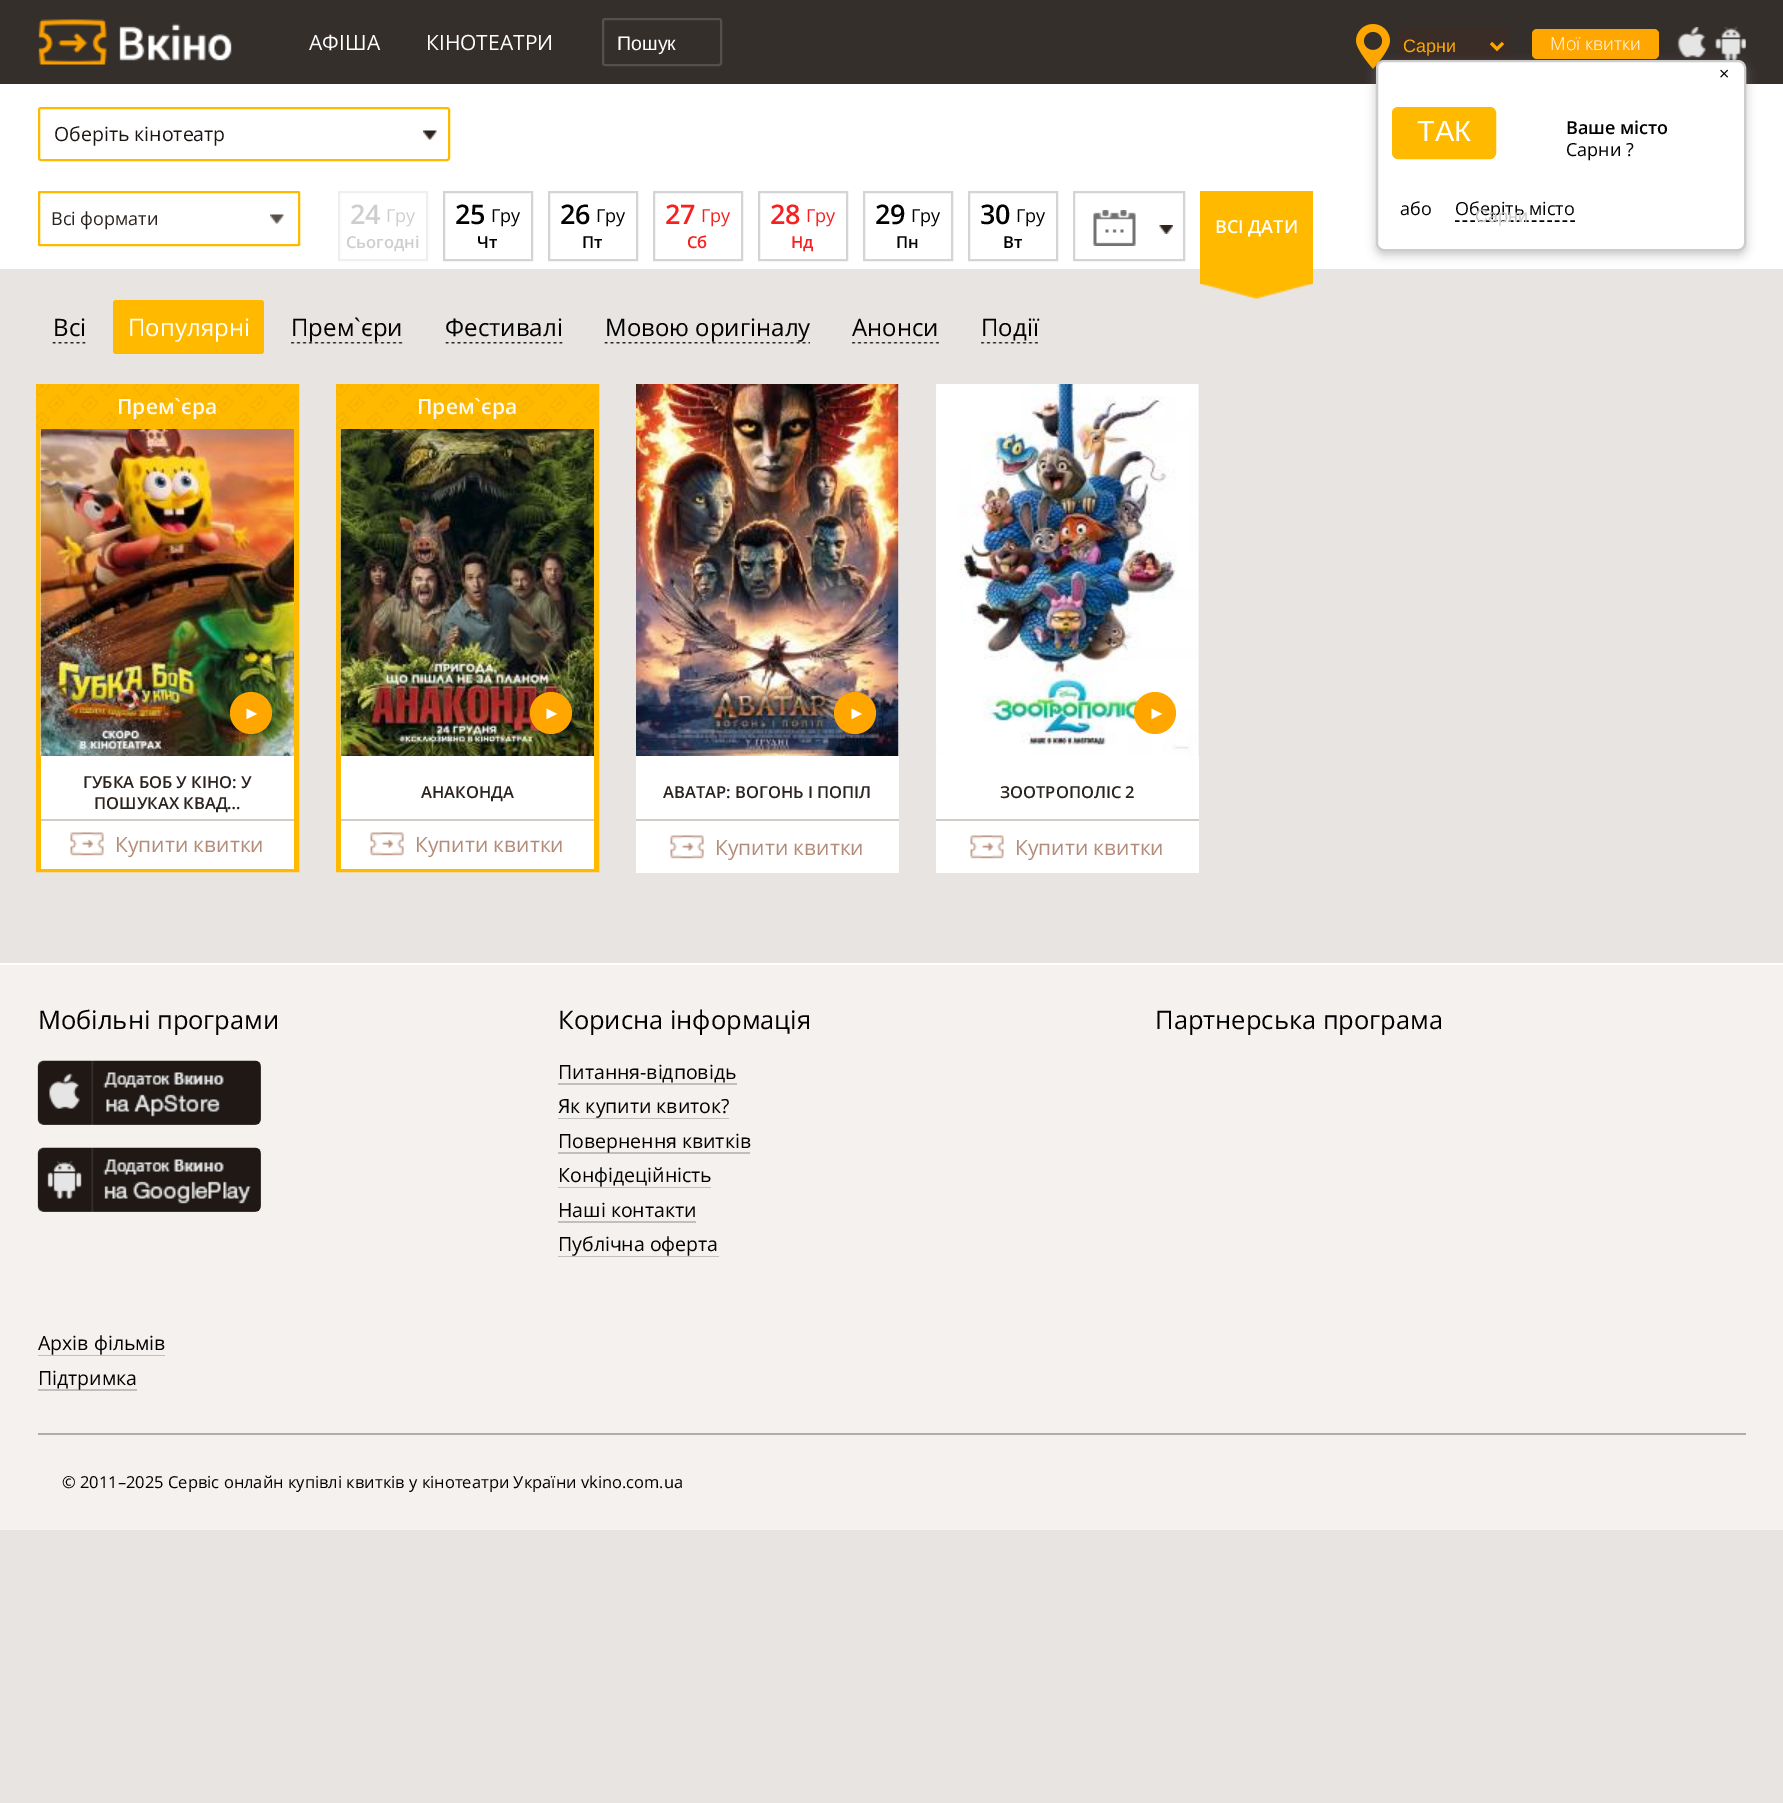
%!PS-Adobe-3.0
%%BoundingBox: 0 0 1783 1803
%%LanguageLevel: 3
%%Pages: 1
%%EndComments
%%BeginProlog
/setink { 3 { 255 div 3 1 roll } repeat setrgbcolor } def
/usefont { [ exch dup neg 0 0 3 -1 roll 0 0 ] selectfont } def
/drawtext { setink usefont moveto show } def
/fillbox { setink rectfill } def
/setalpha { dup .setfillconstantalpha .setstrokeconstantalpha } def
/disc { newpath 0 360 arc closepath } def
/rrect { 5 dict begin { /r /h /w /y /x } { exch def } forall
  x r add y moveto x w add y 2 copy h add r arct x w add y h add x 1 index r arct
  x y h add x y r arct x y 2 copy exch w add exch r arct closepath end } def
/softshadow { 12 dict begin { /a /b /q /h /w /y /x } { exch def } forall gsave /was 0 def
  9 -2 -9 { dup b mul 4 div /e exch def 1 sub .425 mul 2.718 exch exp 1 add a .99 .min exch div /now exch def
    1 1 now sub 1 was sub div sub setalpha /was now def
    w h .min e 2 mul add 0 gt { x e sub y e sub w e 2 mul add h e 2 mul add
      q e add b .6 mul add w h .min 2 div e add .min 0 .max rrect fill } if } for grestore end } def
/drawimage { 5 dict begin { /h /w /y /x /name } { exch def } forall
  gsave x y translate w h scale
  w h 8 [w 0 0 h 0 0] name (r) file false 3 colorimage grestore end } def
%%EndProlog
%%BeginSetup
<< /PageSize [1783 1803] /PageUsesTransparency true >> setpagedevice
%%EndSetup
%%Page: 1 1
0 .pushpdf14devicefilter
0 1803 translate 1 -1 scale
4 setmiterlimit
0 0 1783 1803 231 228 226 fillbox
0 0 1783 84 53 47 44 fillbox
(assets/img1.rgb) 38 19 194 46 drawimage
(АФІША) 309 50 /OpenSans-Regular 21 255 255 255 drawtext
(КІНОТЕАТРИ) 426 50 /OpenSans-Regular 21 255 255 255 drawtext
86 80 76 setink
2 setlinewidth
603 19 118 46 2 rrect stroke
(Пошук) 617 50 /LiberationSans-Regular 19.5 255 255 255 drawtext
(assets/img2.rgb) 1356 24 34 45 drawimage
1397 27 112 33 58 45 40 fillbox
255 167 0 setink
3 setlinewidth
1491 43 moveto 1497 49 lineto 1503 43 lineto stroke
(Сарни) 1403 52 /LiberationSans-Regular 18 255 167 0 drawtext
1532 29 127 30 5 rrect fill
(Мої квитки) 1550 50 /OpenSans-Light 18 255 255 255 drawtext
(assets/img3.rgb) 1677 27 29 31 drawimage
(assets/img4.rgb) 1715 27 31 33 drawimage
0 84 1783 881 255 255 255 fillbox
0 269 1783 694 231 228 226 fillbox
140 140 140 setink
1376 65 370 190 8 5 0.5 softshadow
255 255 255 setink
1377 61 368 189 7 rrect gsave fill grestore
204 204 204 setink
2 setlinewidth
stroke
(×) 1719 80 /OpenSans-Regular 18 0 0 0 drawtext
255 186 0 setink
1393.5 108.5 101 49 4.5 rrect gsave fill grestore
3 setlinewidth
stroke
(ТАК) 1417 141 /LiberationSans-Regular 29 255 255 255 drawtext
(Ваше місто) 1566 134 /OpenSans-SemiBold 18 0 0 0 drawtext
(Сарни ?) 1566 156 /OpenSans-Regular 18 0 0 0 drawtext
(або) 1400 215 /OpenSans-Regular 18 0 0 0 drawtext
(Оберіть місто) 1455 215 /OpenSans-Regular 18 0 0 0 drawtext
1.5 setlinewidth
[4.5 3.19] 0 setdash
1455 221 moveto 1575 221 lineto stroke
(Сарни) 1475 222 /LiberationSans-Regular 18 200 200 200 drawtext
255 186 0 setink
2 setlinewidth
[] 0 setdash
39 108 410 52 2 rrect stroke
(Оберіть кінотеатр) 54 141 /OpenSans-Regular 19.5 27 21 19 drawtext
(assets/img5.rgb) 423 130 14 10 drawimage
255 186 0 setink
39 192 260 53 0.5 rrect stroke
(Всі формати) 51 225 /OpenSans-Regular 18 43 35 31 drawtext
(assets/img6.rgb) 270 214 14 10 drawimage
239 239 239 setink
339 192 88 68 rectstroke
(24) 350 224 /OpenSans-SemiBold 27 206 206 206 drawtext
(Гру) 386 222 /OpenSans-Regular 18 206 206 206 drawtext
(Сьогодні) 346 248 /OpenSans-SemiBold 16.5 206 206 206 drawtext
212 212 212 setink
444 192 88 68 rectstroke
(25) 455 224 /OpenSans-SemiBold 27 0 0 0 drawtext
(Гру) 491 222 /OpenSans-Regular 18 0 0 0 drawtext
(Чт) 477 248 /OpenSans-SemiBold 16.5 0 0 0 drawtext
212 212 212 setink
549 192 88 68 rectstroke
(26) 560 224 /OpenSans-SemiBold 27 0 0 0 drawtext
(Гру) 596 222 /OpenSans-Regular 18 0 0 0 drawtext
(Пт) 582 248 /OpenSans-SemiBold 16.5 0 0 0 drawtext
212 212 212 setink
654 192 88 68 rectstroke
(27) 665 224 /OpenSans-SemiBold 27 247 32 32 drawtext
(Гру) 701 222 /OpenSans-Regular 18 247 32 32 drawtext
(Сб) 687 248 /OpenSans-SemiBold 16.5 247 32 32 drawtext
212 212 212 setink
759 192 88 68 rectstroke
(28) 770 224 /OpenSans-SemiBold 27 247 32 32 drawtext
(Гру) 806 222 /OpenSans-Regular 18 247 32 32 drawtext
(Нд) 791 248 /OpenSans-SemiBold 16.5 247 32 32 drawtext
212 212 212 setink
864 192 88 68 rectstroke
(29) 875 224 /OpenSans-SemiBold 27 0 0 0 drawtext
(Гру) 911 222 /OpenSans-Regular 18 0 0 0 drawtext
(Пн) 896 248 /OpenSans-SemiBold 16.5 0 0 0 drawtext
212 212 212 setink
969 192 88 68 rectstroke
(30) 980 224 /OpenSans-SemiBold 27 0 0 0 drawtext
(Гру) 1016 222 /OpenSans-Regular 18 0 0 0 drawtext
(Вт) 1003 248 /OpenSans-SemiBold 16.5 0 0 0 drawtext
212 212 212 setink
1074 192 110 68 rectstroke
(assets/img7.rgb) 1093 210 43 36 drawimage
(assets/img8.rgb) 1159 225 14 9 drawimage
1200 191 113 93 255 186 0 fillbox
(ВСІ ДАТИ) 1215 233 /OpenSans-SemiBold 18 255 255 255 drawtext
(assets/img9.rgb) 1201 284 112 15 drawimage
(assets/img10.rgb) 52 342 34 2 drawimage
(Всі) 53 336 /OpenSans-Regular 24 0 0 0 drawtext
255 186 0 setink
113 300 151 54 3 rrect fill
(Популярні) 128 336 /OpenSans-Regular 24 255 255 255 drawtext
(assets/img11.rgb) 291 342 112 2 drawimage
(Прем`єри) 291 336 /OpenSans-Regular 24 0 0 0 drawtext
(assets/img12.rgb) 445 342 118 2 drawimage
(Фестивалі) 445 336 /OpenSans-Regular 24 0 0 0 drawtext
(assets/img13.rgb) 604 342 206 2 drawimage
(Мовою оригіналу) 605 336 /OpenSans-Regular 24 0 0 0 drawtext
(assets/img14.rgb) 852 342 87 2 drawimage
(Анонси) 852 336 /OpenSans-Regular 24 0 0 0 drawtext
(assets/img15.rgb) 981 342 57 2 drawimage
(Події) 981 336 /OpenSans-Regular 24 0 0 0 drawtext
255 186 0 setink
5 setlinewidth
38.5 386.5 258 483 rectstroke
41 389 253 40 255 186 0 fillbox
(assets/img16.rgb) 36 384 263 45 drawimage
(Прем`єра) 117 414 /OpenSans-SemiBold 21 252 249 244 drawtext
(assets/img17.rgb) 40 429 1 327 drawimage
(assets/img18.rgb) 40 429 254 327 drawimage
255 167 0 setink
251 713 21 disc fill
(►) 243 719 /LiberationSans-Regular 18 255 255 255 drawtext
41 756 253 113 255 255 255 fillbox
(ГУБКА БОБ У КІНО: У) 83 788 /OpenSans-SemiBold 16.5 43 35 31 drawtext
(ПОШУКАХ КВАД…) 94 809 /OpenSans-SemiBold 16.5 43 35 31 drawtext
41 819 253 2 211 203 197 fillbox
(assets/img19.rgb) 70 832 34 24 drawimage
(Купити квитки) 115 852 /OpenSans-Regular 21 179 140 121 drawtext
255 186 0 setink
338.5 386.5 258 483 rectstroke
341 389 253 40 255 186 0 fillbox
(assets/img20.rgb) 336 384 263 45 drawimage
(Прем`єра) 417 414 /OpenSans-SemiBold 21 252 249 244 drawtext
(assets/img17.rgb) 340 429 1 327 drawimage
(assets/img21.rgb) 340 429 254 327 drawimage
255 167 0 setink
551 713 21 disc fill
(►) 543 719 /LiberationSans-Regular 18 255 255 255 drawtext
341 756 253 113 255 255 255 fillbox
(АНАКОНДА) 421 798 /OpenSans-SemiBold 16.5 43 35 31 drawtext
341 819 253 2 211 203 197 fillbox
(assets/img22.rgb) 370 832 34 24 drawimage
(Купити квитки) 415 852 /OpenSans-Regular 21 179 140 121 drawtext
(assets/img23.rgb) 898 384 1 372 drawimage
(assets/img24.rgb) 636 384 263 372 drawimage
255 167 0 setink
855 713 21 disc fill
(►) 848 719 /LiberationSans-Regular 18 255 255 255 drawtext
636 756 263 117 255 255 255 fillbox
(АВАТАР: ВОГОНЬ І ПОПІЛ) 663 798 /OpenSans-SemiBold 16.5 43 35 31 drawtext
636 819 263 2 211 203 197 fillbox
(assets/img22.rgb) 670 835 34 24 drawimage
(Купити квитки) 715 855 /OpenSans-Regular 21 179 140 121 drawtext
(assets/img25.rgb) 936 384 263 372 drawimage
(assets/img26.rgb) 938 384 261 370 drawimage
255 167 0 setink
1155 713 21 disc fill
(►) 1148 719 /LiberationSans-Regular 18 255 255 255 drawtext
936 756 263 117 255 255 255 fillbox
(ЗООТРОПОЛІС 2) 1000 798 /OpenSans-SemiBold 16.5 43 35 31 drawtext
936 819 263 2 211 203 197 fillbox
(assets/img19.rgb) 970 835 34 24 drawimage
(Купити квитки) 1015 855 /OpenSans-Regular 21 179 140 121 drawtext
0 965 1783 565 244 241 239 fillbox
(Мобільні програми) 38 1029 /OpenSans-Regular 25.5 0 0 0 drawtext
(assets/img27.rgb) 37 1060 224 65 drawimage
(assets/img28.rgb) 37 1147 224 65 drawimage
38 1355 127 1 193 191 189 fillbox
(Архів фільмів) 38 1350 /OpenSans-Regular 19.5 0 0 0 drawtext
38 1389 99 2 193 191 189 fillbox
(Підтримка) 38 1385 /OpenSans-Regular 19.5 0 0 0 drawtext
(Корисна інформація) 558 1029 /OpenSans-Regular 25.5 0 0 0 drawtext
558 1083 179 2 193 191 189 fillbox
(Питання-відповідь) 558 1079 /OpenSans-Regular 19.5 0 0 0 drawtext
558 1118 171 1 193 191 189 fillbox
(Як купити квиток?) 558 1113 /OpenSans-Regular 19.5 0 0 0 drawtext
558 1152 192 2 193 191 189 fillbox
(Повернення квитків) 558 1148 /OpenSans-Regular 19.5 0 0 0 drawtext
558 1187 153 1 193 191 189 fillbox
(Конфідеційність) 558 1182 /OpenSans-Regular 19.5 0 0 0 drawtext
558 1221 138 2 193 191 189 fillbox
(Наші контакти) 558 1217 /OpenSans-Regular 19.5 0 0 0 drawtext
558 1256 161 1 193 191 189 fillbox
(Публічна оферта) 558 1251 /OpenSans-Regular 19.5 0 0 0 drawtext
(Партнерська програма) 1155 1029 /OpenSans-Regular 25.5 0 0 0 drawtext
38 1433 1708 2 175 174 174 fillbox
(© 2011–2025 Сервіс онлайн купівлі квитків у кінотеатри України vkino.com.ua) 62 1488 /OpenSans-Regular 16.5 0 0 0 drawtext
.poppdf14devicefilter showpage
%%EOF
